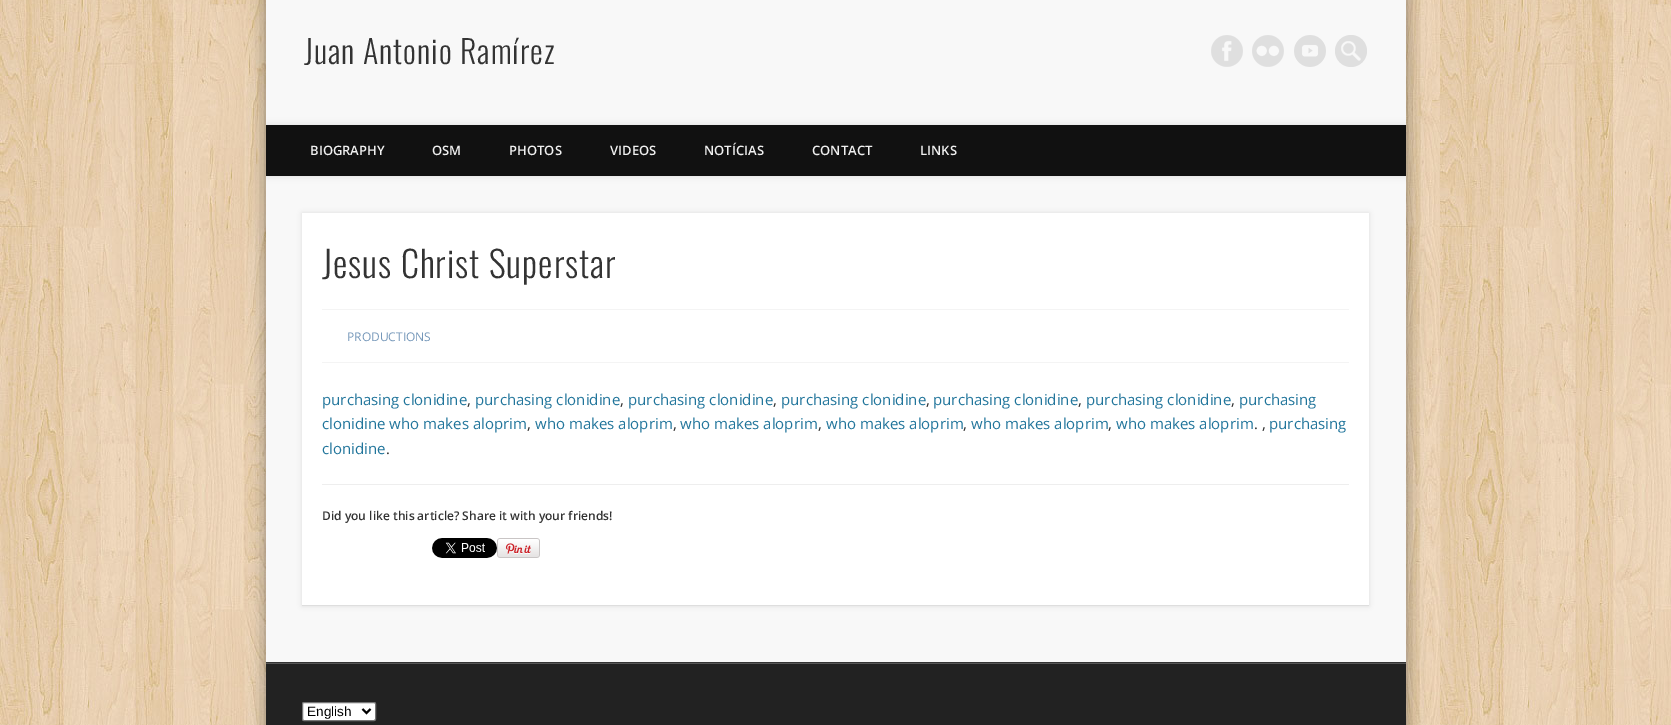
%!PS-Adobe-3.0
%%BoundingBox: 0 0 1671 725
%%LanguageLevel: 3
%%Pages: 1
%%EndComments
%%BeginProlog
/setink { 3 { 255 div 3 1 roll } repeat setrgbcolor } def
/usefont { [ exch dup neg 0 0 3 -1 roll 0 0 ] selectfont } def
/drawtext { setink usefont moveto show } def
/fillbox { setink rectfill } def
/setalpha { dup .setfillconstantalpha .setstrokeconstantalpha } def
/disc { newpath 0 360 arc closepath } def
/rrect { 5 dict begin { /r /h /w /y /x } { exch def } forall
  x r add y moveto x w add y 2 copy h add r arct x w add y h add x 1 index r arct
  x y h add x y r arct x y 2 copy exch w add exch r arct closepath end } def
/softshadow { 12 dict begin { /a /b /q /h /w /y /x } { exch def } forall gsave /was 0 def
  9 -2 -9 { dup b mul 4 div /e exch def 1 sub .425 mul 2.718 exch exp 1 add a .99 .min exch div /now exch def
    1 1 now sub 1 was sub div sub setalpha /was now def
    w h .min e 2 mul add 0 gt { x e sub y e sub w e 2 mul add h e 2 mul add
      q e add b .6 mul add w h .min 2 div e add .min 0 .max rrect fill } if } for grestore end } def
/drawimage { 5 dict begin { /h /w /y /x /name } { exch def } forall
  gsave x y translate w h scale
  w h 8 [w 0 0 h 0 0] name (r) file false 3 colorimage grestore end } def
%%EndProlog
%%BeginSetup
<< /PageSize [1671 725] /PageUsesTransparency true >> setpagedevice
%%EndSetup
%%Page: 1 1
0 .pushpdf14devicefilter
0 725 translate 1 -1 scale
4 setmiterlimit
0 0 1671 725 255 255 255 fillbox
(assets/img1.rgb) 0 0 1671 725 drawimage
0 0 0 setink
266 -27 1140 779 0 9 0.4 softshadow
266 0 1140 662 248 248 248 fillbox
/Oswald-Light 32 usefont
51 51 51 setink
304 64 moveto 1 0 (Juan Antonio Ramírez) ashow
(assets/img2.rgb) 1211 35 32 32 drawimage
(assets/img3.rgb) 1252 35 32 32 drawimage
(assets/img4.rgb) 1294 35 32 32 drawimage
223 223 223 setink
1351 51 16 disc fill
(assets/img5.rgb) 1341 41 20 20 drawimage
gsave
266 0 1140 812 rectclip
0 0 0 setink
266 125 1140 51 0 3.5 0.1 softshadow
grestore
266 125 1140 51 17 17 17 fillbox
(BIOGRAPHY) 310 155 /OpenSans-SemiBold 13 240 240 240 drawtext
(OSM) 432 155 /OpenSans-SemiBold 13 240 240 240 drawtext
(PHOTOS) 509 155 /OpenSans-SemiBold 13 240 240 240 drawtext
(VIDEOS) 610 155 /OpenSans-SemiBold 13 240 240 240 drawtext
(NOTÍCIAS) 704 155 /OpenSans-SemiBold 13 240 240 240 drawtext
(CONTACT) 812 155 /OpenSans-SemiBold 13 240 240 240 drawtext
(LINKS) 920 155 /OpenSans-SemiBold 13 240 240 240 drawtext
0 0 0 setink
302 213 1067 393 0 2.5 0.1 softshadow
302 213 1067 392 255 255 255 fillbox
302 605 1067 1 222 222 222 fillbox
/Oswald-Light 36 usefont
51 51 51 setink
322 278 moveto 1 0 (Jesus Christ Superstar) ashow
322 309 1027 1 244 244 244 fillbox
322 362 1027 1 244 244 244 fillbox
(PRODUCTIONS) 347 341 /OpenSans-Regular 12 117 151 185 drawtext
(purchasing clonidine) 322 405 /OpenSans-Regular 15 33 117 155 drawtext
(,) 467 405 /OpenSans-Regular 15 51 51 51 drawtext
(purchasing clonidine) 475 405 /OpenSans-Regular 15 33 117 155 drawtext
(,) 620 405 /OpenSans-Regular 15 51 51 51 drawtext
(purchasing clonidine) 628 405 /OpenSans-Regular 15 33 117 155 drawtext
(,) 773 405 /OpenSans-Regular 15 51 51 51 drawtext
(purchasing clonidine) 781 405 /OpenSans-Regular 15 33 117 155 drawtext
(,) 926 405 /OpenSans-Regular 15 51 51 51 drawtext
(purchasing clonidine) 933 405 /OpenSans-Regular 15 33 117 155 drawtext
(,) 1078 405 /OpenSans-Regular 15 51 51 51 drawtext
(purchasing clonidine) 1086 405 /OpenSans-Regular 15 33 117 155 drawtext
(,) 1231 405 /OpenSans-Regular 15 51 51 51 drawtext
(purchasing) 1239 405 /OpenSans-Regular 15 33 117 155 drawtext
(clonidine who makes aloprim) 322 429 /OpenSans-Regular 15 33 117 155 drawtext
(,) 527 429 /OpenSans-Regular 15 51 51 51 drawtext
(who makes aloprim) 535 429 /OpenSans-Regular 15 33 117 155 drawtext
(,) 673 429 /OpenSans-Regular 15 51 51 51 drawtext
(who makes aloprim) 680 429 /OpenSans-Regular 15 33 117 155 drawtext
(,) 818 429 /OpenSans-Regular 15 51 51 51 drawtext
(who makes aloprim) 826 429 /OpenSans-Regular 15 33 117 155 drawtext
(,) 963 429 /OpenSans-Regular 15 51 51 51 drawtext
(who makes aloprim) 971 429 /OpenSans-Regular 15 33 117 155 drawtext
(,) 1108 429 /OpenSans-Regular 15 51 51 51 drawtext
(who makes aloprim) 1116 429 /OpenSans-Regular 15 33 117 155 drawtext
(. ,) 1254 429 /OpenSans-Regular 15 51 51 51 drawtext
(purchasing) 1269 429 /OpenSans-Regular 15 33 117 155 drawtext
(clonidine) 322 454 /OpenSans-Regular 15 33 117 155 drawtext
(.) 386 454 /OpenSans-Regular 15 51 51 51 drawtext
322 484 1027 1 238 238 238 fillbox
(Did you like this article? Share it with your friends!) 322 520 /OpenSans-SemiBold 12 51 51 51 drawtext
(assets/img6.rgb) 432 538 65 20 drawimage
(assets/img7.rgb) 497 538 43 20 drawimage
266 662 1140 1 52 52 52 fillbox
266 664 1140 61 34 34 34 fillbox
266 663 1140 1 86 86 86 fillbox
255 255 255 setink
302.5 702.5 73 18 1.5 rrect gsave fill grestore
118 118 118 setink
stroke
0 0 0 setink
2 setlinewidth
362.5 709 moveto 366.5 713 lineto 370.5 709 lineto stroke
(English) 307 716 /LiberationSans-Regular 13.5 0 0 0 drawtext
.poppdf14devicefilter showpage
%%EOF
